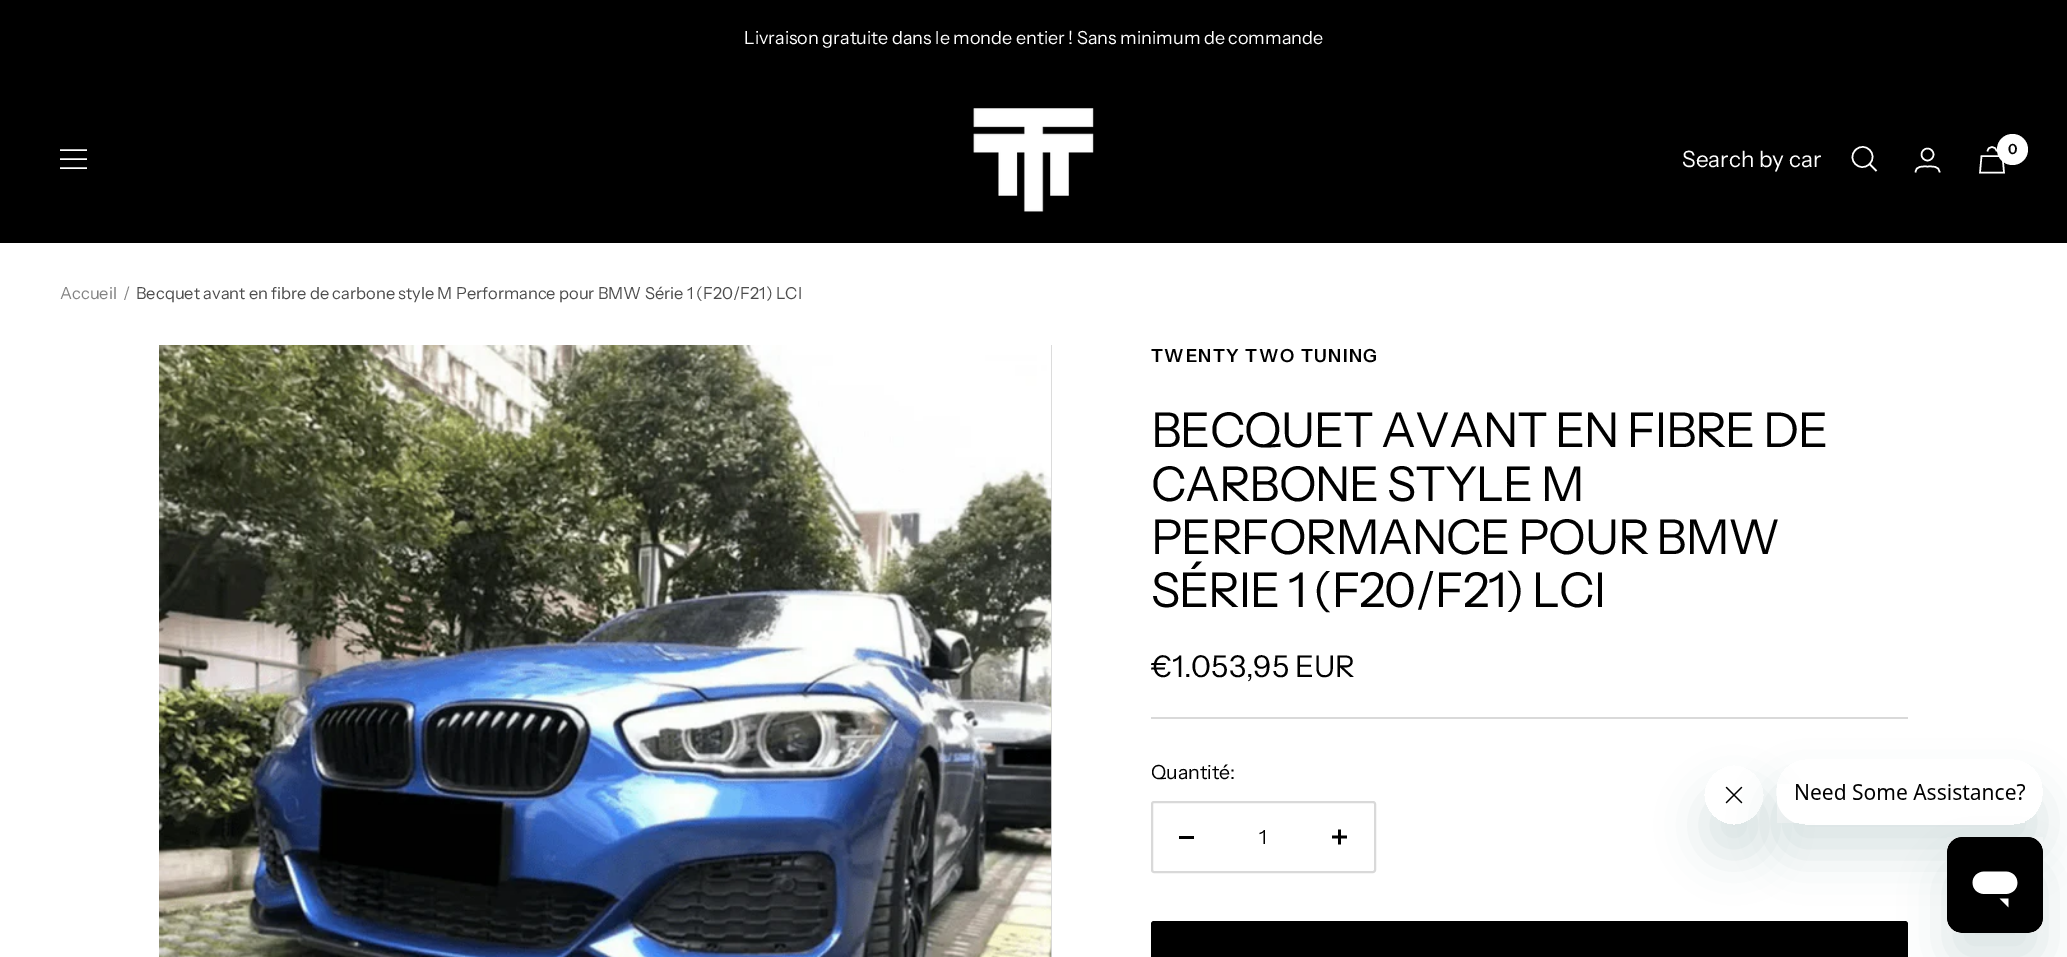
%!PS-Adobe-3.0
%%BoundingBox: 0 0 2067 957
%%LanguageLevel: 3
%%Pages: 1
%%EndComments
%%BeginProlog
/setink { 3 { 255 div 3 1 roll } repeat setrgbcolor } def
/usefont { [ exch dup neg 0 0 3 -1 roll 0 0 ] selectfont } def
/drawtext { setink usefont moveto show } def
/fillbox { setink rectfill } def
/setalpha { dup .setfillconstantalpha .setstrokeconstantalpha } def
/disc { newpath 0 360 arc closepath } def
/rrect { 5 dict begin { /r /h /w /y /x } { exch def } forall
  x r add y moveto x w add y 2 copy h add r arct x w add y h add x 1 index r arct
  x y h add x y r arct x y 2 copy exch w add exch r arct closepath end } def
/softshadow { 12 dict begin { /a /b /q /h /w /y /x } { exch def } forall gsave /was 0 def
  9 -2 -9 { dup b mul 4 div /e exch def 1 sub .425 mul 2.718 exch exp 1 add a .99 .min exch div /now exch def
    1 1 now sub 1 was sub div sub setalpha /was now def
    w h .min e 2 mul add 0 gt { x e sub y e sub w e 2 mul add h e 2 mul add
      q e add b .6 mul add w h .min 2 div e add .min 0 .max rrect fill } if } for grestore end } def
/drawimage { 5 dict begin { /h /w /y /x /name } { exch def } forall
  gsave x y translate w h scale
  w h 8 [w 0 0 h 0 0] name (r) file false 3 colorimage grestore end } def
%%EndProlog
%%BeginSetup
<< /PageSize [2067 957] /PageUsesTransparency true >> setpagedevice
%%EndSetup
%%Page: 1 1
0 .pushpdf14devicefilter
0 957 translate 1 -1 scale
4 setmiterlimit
0 0 2067 957 255 255 255 fillbox
0 0 2067 243 0 0 0 fillbox
(Livraison gratuite dans le monde entier ! Sans minimum de commande) 744 44 /InstrumentSans-Regular 18 255 255 255 drawtext
1.5 setlinewidth
60 150 moveto 87 150 lineto 60 168 moveto 87 168 lineto closepath 60 159 moveto 87 159 lineto closepath stroke
(assets/img1.rgb) 973 108 121 104 drawimage
(Search by car) 1682 167 /InstrumentSans-Regular 22.5 255 255 255 drawtext
1869.5 164 moveto 1879 154.5 1865 140.5 1855.5 150 curveto 1846 159.5 1860 173.5 1869.5 164 curveto closepath 1869.5 164 moveto 1876.5 171 lineto stroke
1927.5 154.5 6 disc stroke
1915.5 172.5 moveto 1915.5 165.5 1923 166.5 1927.5 166.5 curveto 1932 166.5 1939.5 165.5 1939.5 172.5 curveto stroke
1981.5 156 moveto 2002.5 156 lineto 2004 172.5 lineto 1980 172.5 lineto closepath 1996.5 151.5 moveto 1996.5 145.5 1987.5 145.5 1987.5 151.5 curveto stroke
2012.5 149.5 15.5 disc fill
(0) 2008 154 /InstrumentSans-SemiBold 14 0 0 0 drawtext
(Accueil) 60 299 /InstrumentSans-Regular 16.5 130 130 130 drawtext
(/) 123 299 /InstrumentSans-Regular 16.5 130 130 130 drawtext
(Becquet avant en fibre de carbone style M Performance pour BMW Série 1 \(F20/F21\) LCI) 136 299 /InstrumentSans-Regular 16.5 77 77 77 drawtext
1051 345 1 612 215 215 215 fillbox
(assets/img2.rgb) 159 345 893 612 drawimage
1151 717 757 2 217 217 217 fillbox
/InstrumentSans-SemiBold 18 usefont
0 0 0 setink
1151 362 moveto 1.5 0 (TWENTY TWO TUNING) ashow
/InstrumentSans-Regular 48 usefont
1151 447 moveto -1.2 0 (BECQUET AVANT EN FIBRE DE) ashow
1151 501 moveto -1.2 0 (CARBONE STYLE M) ashow
1151 554 moveto -1.2 0 (PERFORMANCE POUR BMW) ashow
1151 607 moveto -1.2 0 (SÉRIE 1 \(F20/F21\) LCI) ashow
(€1.053,95 EUR) 1151 677 /InstrumentSans-Regular 30 0 0 0 drawtext
(Quantité:) 1151 779 /InstrumentSans-Regular 19.5 0 0 0 drawtext
217 217 217 setink
2 setlinewidth
1152 802 223 70 2 rrect stroke
1179 836 15 3 0 0 0 fillbox
(1) 1259 844 /InstrumentSans-Regular 19.5 0 0 0 drawtext
(assets/img3.rgb) 1332 829 15 16 drawimage
1151 921 757 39 3 rrect fill
gsave
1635 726 moveto 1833 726 lineto 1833 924 lineto 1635 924 lineto closepath 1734 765 moveto 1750.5 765 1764 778.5 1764 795 curveto 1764 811.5 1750.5 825 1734 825 curveto 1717.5 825 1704 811.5 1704 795 curveto 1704 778.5 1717.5 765 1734 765 curveto closepath eoclip newpath
23 73 77 setink
1704 795 60 60 30 22.5 0.15 softshadow
grestore
(assets/img5.rgb) 1725 786 18 18 drawimage
gsave
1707 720 moveto 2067 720 lineto 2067 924 lineto 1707 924 lineto closepath 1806 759 moveto 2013 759 lineto 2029.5 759 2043 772.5 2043 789 curveto 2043 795 lineto 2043 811.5 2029.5 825 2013 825 curveto 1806 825 lineto 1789.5 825 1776 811.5 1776 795 curveto 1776 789 lineto 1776 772.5 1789.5 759 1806 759 curveto closepath eoclip newpath
23 73 77 setink
1776 789 267 66 30 22.5 0.15 softshadow
grestore
(assets/img4.rgb) 1777 784 248 39 drawimage
23 73 77 setink
1947 867 96 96 15 22.5 0.15 softshadow
(assets/img6.rgb) 1947 837 96 96 drawimage
.poppdf14devicefilter showpage
%%EOF
